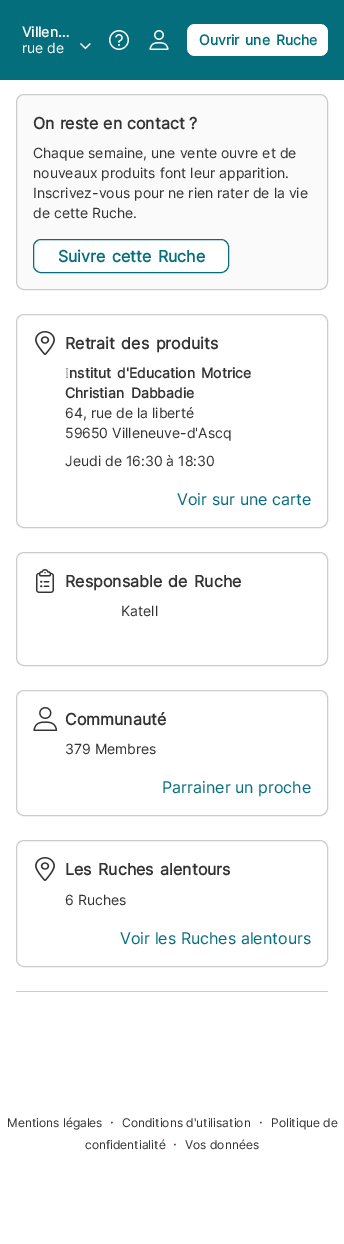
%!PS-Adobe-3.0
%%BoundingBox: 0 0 344 1244
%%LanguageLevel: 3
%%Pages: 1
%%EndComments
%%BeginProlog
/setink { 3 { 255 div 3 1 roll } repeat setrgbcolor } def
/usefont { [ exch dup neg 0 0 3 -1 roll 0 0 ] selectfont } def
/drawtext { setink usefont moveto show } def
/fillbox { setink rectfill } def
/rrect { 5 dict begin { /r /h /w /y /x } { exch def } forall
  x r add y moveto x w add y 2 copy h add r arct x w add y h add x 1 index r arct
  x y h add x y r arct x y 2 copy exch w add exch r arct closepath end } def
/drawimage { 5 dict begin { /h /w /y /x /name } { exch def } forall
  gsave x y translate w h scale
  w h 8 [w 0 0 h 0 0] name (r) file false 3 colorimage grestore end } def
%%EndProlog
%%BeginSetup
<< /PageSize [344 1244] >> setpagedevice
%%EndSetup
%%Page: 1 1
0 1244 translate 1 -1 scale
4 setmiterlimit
0 0 344 1244 255 255 255 fillbox
0 0 344 80 5 110 125 fillbox
(Villen…) 22 37 /Inter-Bold 14 255 255 255 drawtext
(rue de) 22 53 /Inter-Regular 14 255 255 255 drawtext
(assets/img1.rgb) 80 43 11 7 drawimage
(assets/img2.rgb) 109 30 20 20 drawimage
(assets/img3.rgb) 149 30 20 20 drawimage
187 24 141 32 8 rrect fill
/Inter-Bold 14 usefont
5 110 125 setink
199 45 moveto 2 0 32 (Ouvrir une Ruche) widthshow
16 991 312 1 204 204 204 fillbox
250 250 250 setink
16.5 94.5 311 195 7.5 rrect gsave fill grestore
204 204 204 setink
stroke
/Inter-Bold 16 usefont
51 51 51 setink
33 129 moveto 0.5 0 32 (On reste en contact ?) widthshow
(Chaque semaine, une vente ouvre et de) 33 158 /Inter-Regular 14 51 51 51 drawtext
(nouveaux produits font leur apparition.) 33 178 /Inter-Regular 14 51 51 51 drawtext
(Inscrivez-vous pour ne rien rater de la vie) 33 198 /Inter-Regular 14 51 51 51 drawtext
(de cette Ruche.) 33 218 /Inter-Regular 14 51 51 51 drawtext
255 255 255 setink
33.5 239.5 195 33 7.5 rrect gsave fill grestore
5 110 125 setink
stroke
/Inter-Bold 16 usefont
58 262 moveto 2 0 32 (Suivre cette Ruche) widthshow
204 204 204 setink
16.5 314.5 311 213 7.5 rrect stroke
(assets/img4.rgb) 35 331 20 24 drawimage
51 51 51 setink
65 349 moveto 2 0 32 (Retrait des produits) widthshow
(I) 65 378 /NotoSans-Thin 14 51 51 51 drawtext
/Inter-Bold 14 usefont
69 378 moveto 2 0 32 (nstitut d'Education Motrice) widthshow
65 398 moveto 3 0 32 (Christian Dabbadie) widthshow
(64, rue de la liberté) 65 418 /Inter-Regular 14 51 51 51 drawtext
(59650 Villeneuve-d'Ascq) 65 438 /Inter-Regular 14 51 51 51 drawtext
(Jeudi de 16:30 à 18:30) 65 466 /Inter-Regular 14 51 51 51 drawtext
(Voir sur une carte) 177 505 /Inter-Regular 16 5 110 125 drawtext
204 204 204 setink
16.5 552.5 311 113 7.5 rrect stroke
(assets/img5.rgb) 36 569 18 24 drawimage
/Inter-Bold 16 usefont
51 51 51 setink
65 587 moveto 2 0 32 (Responsable de Ruche) widthshow
(Katell) 121 616 /Inter-Regular 14 51 51 51 drawtext
204 204 204 setink
16.5 690.5 311 125 7.5 rrect stroke
(assets/img6.rgb) 33 707 24 24 drawimage
(Communauté) 65 725 /Inter-Bold 16 51 51 51 drawtext
(379 Membres) 65 754 /Inter-Regular 14 51 51 51 drawtext
(Parrainer un proche) 162 793 /Inter-Regular 16 5 110 125 drawtext
204 204 204 setink
16.5 840.5 311 126 7.5 rrect stroke
(assets/img4.rgb) 35 857 20 24 drawimage
/Inter-Bold 16 usefont
51 51 51 setink
65 875 moveto 2 0 32 (Les Ruches alentours) widthshow
(6 Ruches) 65 905 /Inter-Regular 14 51 51 51 drawtext
(Voir les Ruches alentours) 120 944 /Inter-Regular 16 5 110 125 drawtext
(Mentions légales) 7 1127 /Inter-Regular 12 51 51 51 drawtext
(·) 110 1127 /Inter-Regular 14 92 39 47 drawtext
(Politique de) 271 1127 /Inter-Regular 12 51 51 51 drawtext
(confidentialité) 85 1149 /Inter-Regular 12 51 51 51 drawtext
(·) 173 1149 /Inter-Regular 14 92 39 47 drawtext
(Conditions d'utilisation) 122 1127 /Inter-Regular 12 51 51 51 drawtext
(·) 259 1127 /Inter-Regular 14 92 39 47 drawtext
(Vos données) 185 1149 /Inter-Regular 12 51 51 51 drawtext
showpage
%%EOF
